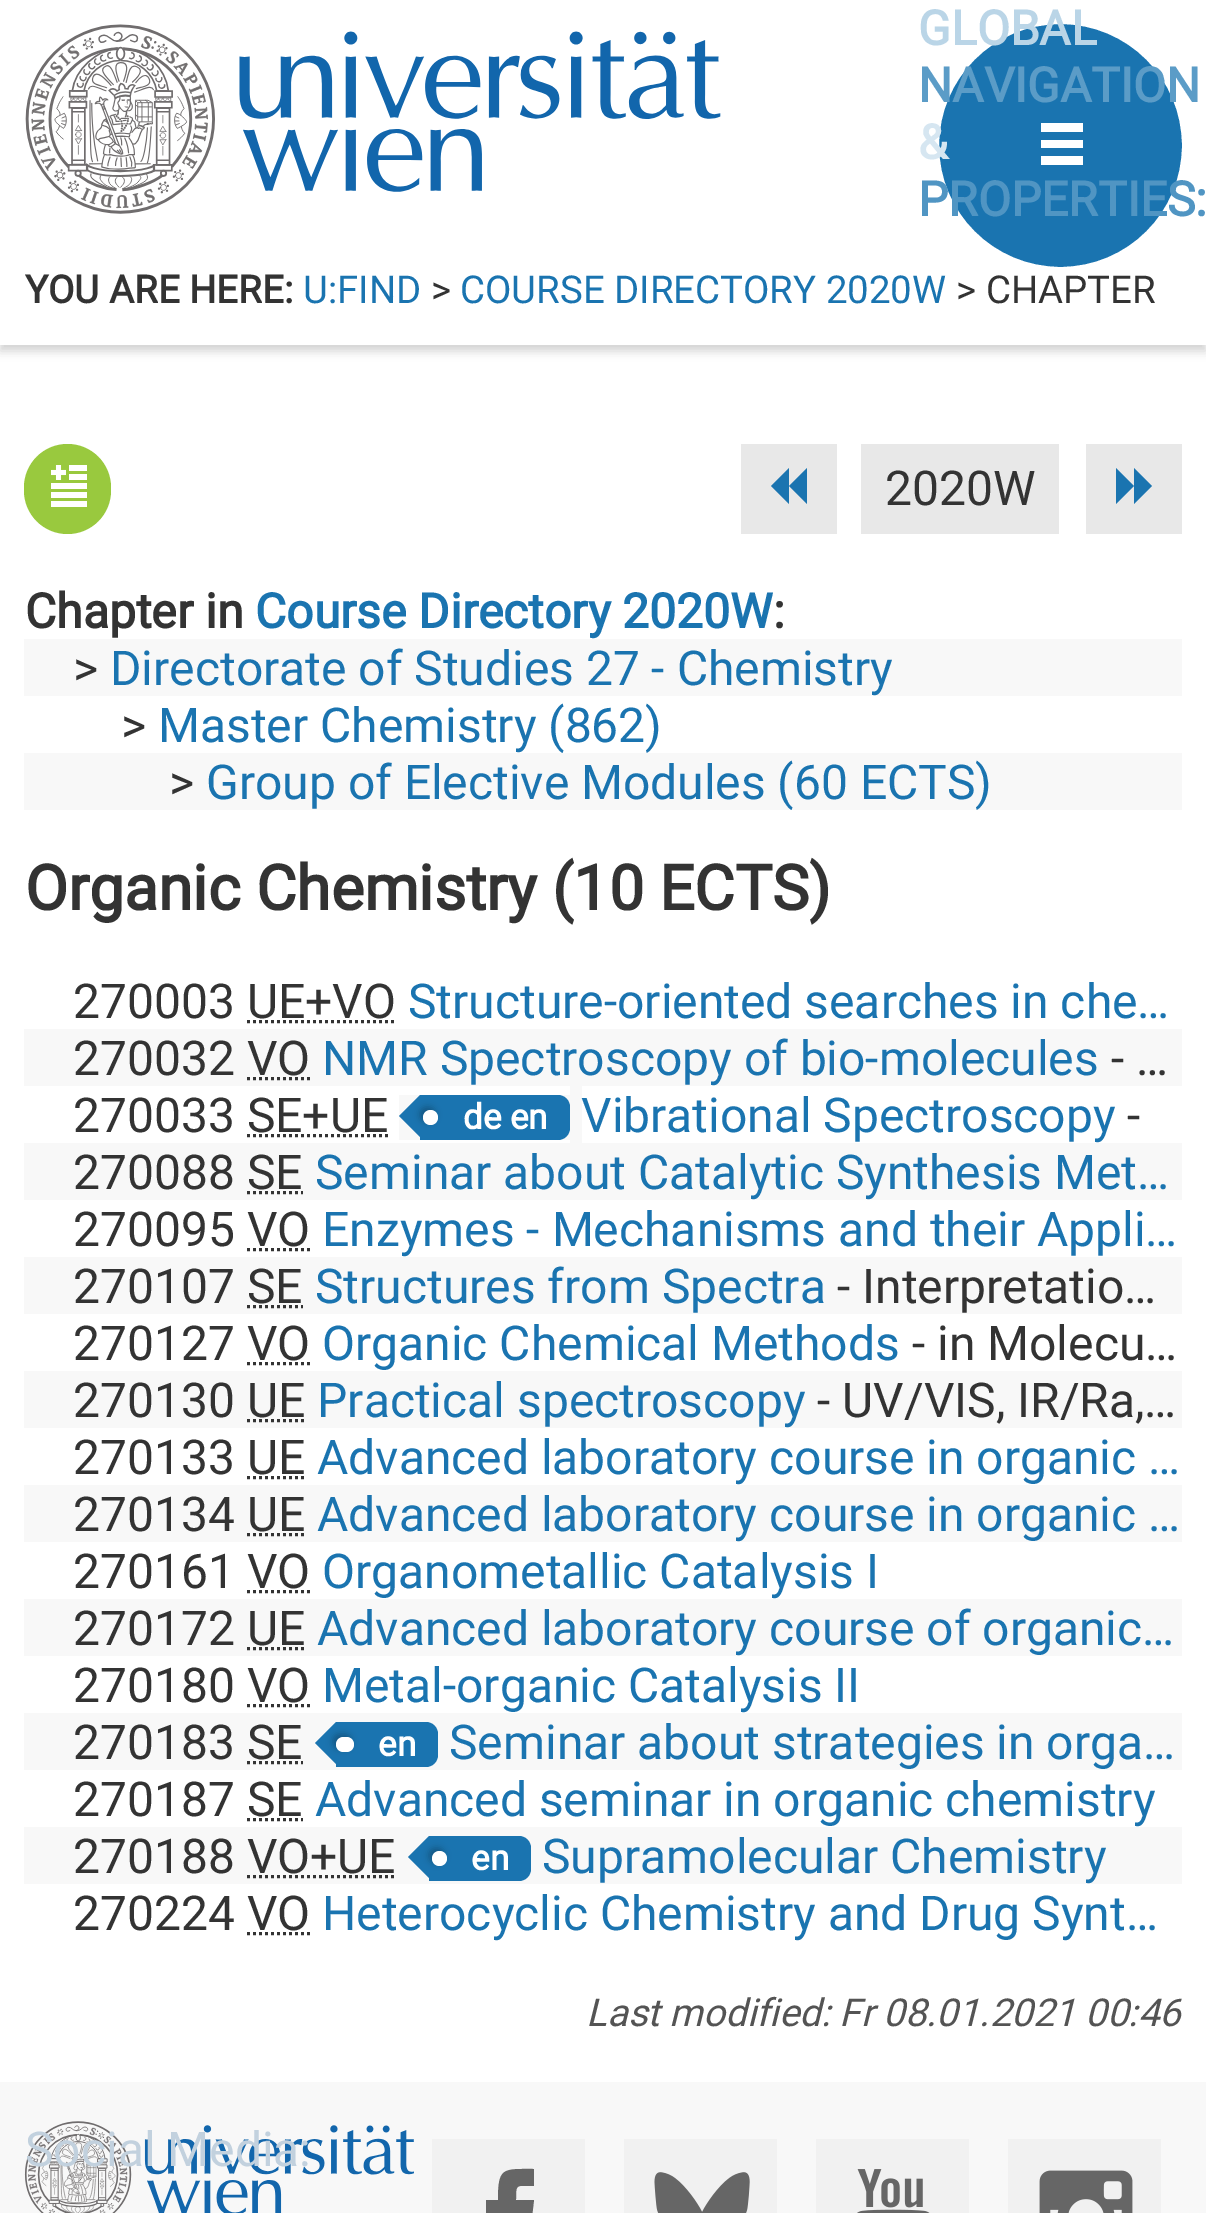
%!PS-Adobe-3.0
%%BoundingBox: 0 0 1206 2213
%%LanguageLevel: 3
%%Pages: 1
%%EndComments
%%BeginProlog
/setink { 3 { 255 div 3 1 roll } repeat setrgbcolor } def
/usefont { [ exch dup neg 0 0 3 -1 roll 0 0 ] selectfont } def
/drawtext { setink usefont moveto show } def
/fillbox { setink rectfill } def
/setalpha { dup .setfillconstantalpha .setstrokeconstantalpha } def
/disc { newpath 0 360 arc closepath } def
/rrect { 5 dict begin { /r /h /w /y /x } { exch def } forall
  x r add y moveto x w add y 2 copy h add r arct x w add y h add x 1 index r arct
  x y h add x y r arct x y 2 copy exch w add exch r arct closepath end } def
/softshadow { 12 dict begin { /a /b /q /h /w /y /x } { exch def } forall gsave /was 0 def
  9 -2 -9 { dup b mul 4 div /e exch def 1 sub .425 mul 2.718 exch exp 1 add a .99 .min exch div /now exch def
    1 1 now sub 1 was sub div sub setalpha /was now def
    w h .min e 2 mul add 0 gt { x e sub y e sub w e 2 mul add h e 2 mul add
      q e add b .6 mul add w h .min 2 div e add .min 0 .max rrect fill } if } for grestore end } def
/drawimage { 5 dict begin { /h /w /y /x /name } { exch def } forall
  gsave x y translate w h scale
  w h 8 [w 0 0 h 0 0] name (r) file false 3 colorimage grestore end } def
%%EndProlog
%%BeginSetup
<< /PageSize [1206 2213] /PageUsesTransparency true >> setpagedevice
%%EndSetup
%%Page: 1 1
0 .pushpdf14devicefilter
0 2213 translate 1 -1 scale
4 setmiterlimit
0 0 1206 2213 255 255 255 fillbox
0 0 0 setink
0 6 1206 345 0 5 0.18 softshadow
0 0 1206 345 255 255 255 fillbox
(assets/img1.rgb) 25 24 696 190 drawimage
26 116 176 setink
1060.5 145.5 133.5 disc gsave fill grestore
255 255 255 setink
24 setlinewidth
stroke
1041 132 moveto 1041 123 lineto 1083 123 lineto 1083 132 lineto closepath 1041 148 moveto 1041 140 lineto 1083 140 lineto 1083 148 lineto closepath 1041 165 moveto 1041 156 lineto 1083 156 lineto 1083 165 lineto closepath fill
(GLOBAL) 918 45 /Roboto-Bold 48 186 213 231 drawtext
(NAVIGATION) 918 102 /Roboto-Bold 48 91 156 199 drawtext
(&) 918 159 /Roboto-Bold 48 214 230 241 drawtext
(PROPERTIES:) 918 216 /Roboto-Bold 48 80 149 195 drawtext
(YOU ARE HERE:) 25 303 /Roboto-Bold 38.4 51 51 51 drawtext
(U:FIND) 303 303 /Roboto-Regular 38.4 26 116 176 drawtext
(>) 431 303 /Roboto-Regular 38.4 51 51 51 drawtext
(COURSE DIRECTORY 2020W) 460 303 /Roboto-Regular 38.4 26 116 176 drawtext
(> CHAPTER) 956 303 /Roboto-Regular 38.4 51 51 51 drawtext
153 201 62 setink
24 444 87 90 43.5 rrect fill
(assets/img2.rgb) 51 465 36 42 drawimage
741 444 96 90 232 232 232 fillbox
26 116 176 setink
789 468 moveto 789 504 lineto 771 486 lineto closepath 807 468 moveto 807 504 lineto 789 486 lineto closepath fill
861 444 198 90 232 232 232 fillbox
(2020W) 885 505 /Roboto-Regular 48 51 51 51 drawtext
1086 444 96 90 232 232 232 fillbox
26 116 176 setink
1116 468 moveto 1134 486 lineto 1116 504 lineto closepath 1134 468 moveto 1152 486 lineto 1134 504 lineto closepath fill
(Chapter in) 25 628 /Roboto-Bold 48 51 51 51 drawtext
(Course Directory 2020W) 255 628 /Roboto-Bold 48 26 116 176 drawtext
(:) 773 628 /Roboto-Bold 48 51 51 51 drawtext
24 639 1158 57 248 248 248 fillbox
(>) 73 685 /Roboto-Regular 48 51 51 51 drawtext
(Directorate of Studies 27 - Chemistry) 110 685 /Roboto-Regular 48 26 116 176 drawtext
(>) 121 742 /Roboto-Regular 48 51 51 51 drawtext
(Master Chemistry \(862\)) 158 742 /Roboto-Regular 48 26 116 176 drawtext
24 753 1158 57 248 248 248 fillbox
(>) 169 799 /Roboto-Regular 48 51 51 51 drawtext
(Group of Elective Modules \(60 ECTS\)) 206 799 /Roboto-Regular 48 26 116 176 drawtext
(Organic Chemistry \(10 ECTS\)) 25 910 /Roboto-Bold 62.4 51 51 51 drawtext
(270003 UE+VO) 73 1018 /Roboto-Regular 48 51 51 51 drawtext
(Structure-oriented searches in che…) 408 1018 /Roboto-Regular 48 26 116 176 drawtext
51 51 51 setink
3 setlinewidth
[3 3] 0 setdash
247 1021.5 moveto 396 1021.5 lineto stroke
24 1029 1158 57 248 248 248 fillbox
(270032 VO) 73 1075 /Roboto-Regular 48 51 51 51 drawtext
(NMR Spectroscopy of bio-molecules) 322 1075 /Roboto-Regular 48 26 116 176 drawtext
(- …) 1111 1075 /Roboto-Regular 48 51 51 51 drawtext
247 1078.5 moveto 310.5 1078.5 lineto stroke
(270033 SE+UE) 73 1132 /Roboto-Regular 48 51 51 51 drawtext
399 1095 171 45 248 248 248 fillbox
570 1086 12 57 248 248 248 fillbox
26 116 176 setink
420 1095 moveto 420 1137 lineto 399 1116 lineto closepath fill
420 1095 moveto 558 1095 lineto 564.5 1095 570 1100.5 570 1107 curveto 570 1128 lineto 570 1134.5 564.5 1140 558 1140 curveto 420 1140 lineto closepath fill
20 86 131 setink
420 1107 15 15 7.5 3.5 1 softshadow
255 255 255 setink
430.5 1117.5 7.5 disc fill
(de en) 463 1129 /Roboto-Bold 35 255 255 255 drawtext
(Vibrational Spectroscopy) 581 1132 /Roboto-Regular 48 26 116 176 drawtext
(-) 1127 1132 /Roboto-Regular 48 51 51 51 drawtext
247 1135.5 moveto 388.5 1135.5 lineto stroke
24 1143 1158 57 248 248 248 fillbox
(270088 SE) 73 1189 /Roboto-Regular 48 51 51 51 drawtext
(Seminar about Catalytic Synthesis Met…) 315 1189 /Roboto-Regular 48 26 116 176 drawtext
51 51 51 setink
247 1192.5 moveto 303 1192.5 lineto stroke
(270095 VO) 73 1246 /Roboto-Regular 48 51 51 51 drawtext
(Enzymes - Mechanisms and their Appli…) 322 1246 /Roboto-Regular 48 26 116 176 drawtext
51 51 51 setink
247 1249.5 moveto 310.5 1249.5 lineto stroke
24 1257 1158 57 248 248 248 fillbox
(270107 SE) 73 1303 /Roboto-Regular 48 51 51 51 drawtext
(Structures from Spectra) 315 1303 /Roboto-Regular 48 26 116 176 drawtext
(- Interpretatio…) 837 1303 /Roboto-Regular 48 51 51 51 drawtext
247 1306.5 moveto 303 1306.5 lineto stroke
(270127 VO) 73 1360 /Roboto-Regular 48 51 51 51 drawtext
(Organic Chemical Methods) 322 1360 /Roboto-Regular 48 26 116 176 drawtext
(- in Molecu…) 912 1360 /Roboto-Regular 48 51 51 51 drawtext
247 1363.5 moveto 310.5 1363.5 lineto stroke
24 1371 1158 57 248 248 248 fillbox
(270130 UE) 73 1417 /Roboto-Regular 48 51 51 51 drawtext
(Practical spectroscopy) 317 1417 /Roboto-Regular 48 26 116 176 drawtext
(- UV/VIS, IR/Ra,…) 817 1417 /Roboto-Regular 48 51 51 51 drawtext
247 1420.5 moveto 305.5 1420.5 lineto stroke
(270133 UE) 73 1474 /Roboto-Regular 48 51 51 51 drawtext
(Advanced laboratory course in organic …) 317 1474 /Roboto-Regular 48 26 116 176 drawtext
51 51 51 setink
247 1477.5 moveto 305.5 1477.5 lineto stroke
24 1485 1158 57 248 248 248 fillbox
(270134 UE) 73 1531 /Roboto-Regular 48 51 51 51 drawtext
(Advanced laboratory course in organic …) 317 1531 /Roboto-Regular 48 26 116 176 drawtext
51 51 51 setink
247 1534.5 moveto 305.5 1534.5 lineto stroke
(270161 VO) 73 1588 /Roboto-Regular 48 51 51 51 drawtext
(Organometallic Catalysis I) 322 1588 /Roboto-Regular 48 26 116 176 drawtext
51 51 51 setink
247 1591.5 moveto 310.5 1591.5 lineto stroke
24 1599 1158 57 248 248 248 fillbox
(270172 UE) 73 1645 /Roboto-Regular 48 51 51 51 drawtext
(Advanced laboratory course of organic…) 317 1645 /Roboto-Regular 48 26 116 176 drawtext
51 51 51 setink
247 1648.5 moveto 305.5 1648.5 lineto stroke
(270180 VO) 73 1702 /Roboto-Regular 48 51 51 51 drawtext
(Metal-organic Catalysis II) 322 1702 /Roboto-Regular 48 26 116 176 drawtext
51 51 51 setink
247 1705.5 moveto 310.5 1705.5 lineto stroke
24 1713 1158 57 248 248 248 fillbox
(270183 SE) 73 1759 /Roboto-Regular 48 51 51 51 drawtext
26 116 176 setink
336 1722 moveto 336 1764 lineto 315 1743 lineto closepath fill
336 1722 moveto 426 1722 lineto 432.5 1722 438 1727.5 438 1734 curveto 438 1755 lineto 438 1761.5 432.5 1767 426 1767 curveto 336 1767 lineto closepath fill
20 86 131 setink
333 1734 18 15 7.5 3.5 1 softshadow
255 255 255 setink
336 1737 18 15 7.5 rrect fill
(en) 378 1756 /Roboto-Bold 35 255 255 255 drawtext
(Seminar about strategies in orga…) 449 1759 /Roboto-Regular 48 26 116 176 drawtext
51 51 51 setink
247 1762.5 moveto 303 1762.5 lineto stroke
(270187 SE) 73 1816 /Roboto-Regular 48 51 51 51 drawtext
(Advanced seminar in organic chemistry) 315 1816 /Roboto-Regular 48 26 116 176 drawtext
51 51 51 setink
247 1819.5 moveto 303 1819.5 lineto stroke
24 1827 1158 57 248 248 248 fillbox
(270188 VO+UE) 73 1873 /Roboto-Regular 48 51 51 51 drawtext
26 116 176 setink
429 1836 moveto 429 1878 lineto 408 1857 lineto closepath fill
429 1836 moveto 519 1836 lineto 525.5 1836 531 1841.5 531 1848 curveto 531 1869 lineto 531 1875.5 525.5 1881 519 1881 curveto 429 1881 lineto closepath fill
20 86 131 setink
429 1848 15 15 7.5 3.5 1 softshadow
255 255 255 setink
439.5 1858.5 7.5 disc fill
(en) 471 1870 /Roboto-Bold 35 255 255 255 drawtext
(Supramolecular Chemistry) 542 1873 /Roboto-Regular 48 26 116 176 drawtext
51 51 51 setink
247 1876.5 moveto 396 1876.5 lineto stroke
(270224 VO) 73 1930 /Roboto-Regular 48 51 51 51 drawtext
(Heterocyclic Chemistry and Drug Synt…) 322 1930 /Roboto-Regular 48 26 116 176 drawtext
51 51 51 setink
247 1933.5 moveto 310.5 1933.5 lineto stroke
(Last modified: Fr 08.01.2021 00:46) 586 2026 /Roboto-Italic 38.4 84 84 84 drawtext
0 2082 1206 131 248 248 248 fillbox
(assets/img3.rgb) 24 2121 390 92 drawimage
(Social Media:) 25 2166 /Roboto-Regular 48 194 209 222 drawtext
432 2139 153 74 241 241 241 fillbox
102 102 102 setink
516 2200 moveto 516 2183 516 2186 534 2186 curveto 534 2169 lineto 503 2169 498 2167 498 2200 curveto 486 2200 lineto 486 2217 lineto 498 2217 lineto 498 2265 lineto 516 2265 lineto 516 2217 lineto 532 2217 lineto 534 2200 lineto closepath fill
624 2139 153 74 241 241 241 fillbox
(assets/img4.rgb) 654 2172 96 41 drawimage
816 2139 153 74 241 241 241 fillbox
(assets/img5.rgb) 857 2169 73 44 drawimage
1008 2139 153 74 241 241 241 fillbox
(assets/img6.rgb) 1039 2170 94 43 drawimage
.poppdf14devicefilter showpage
%%EOF
